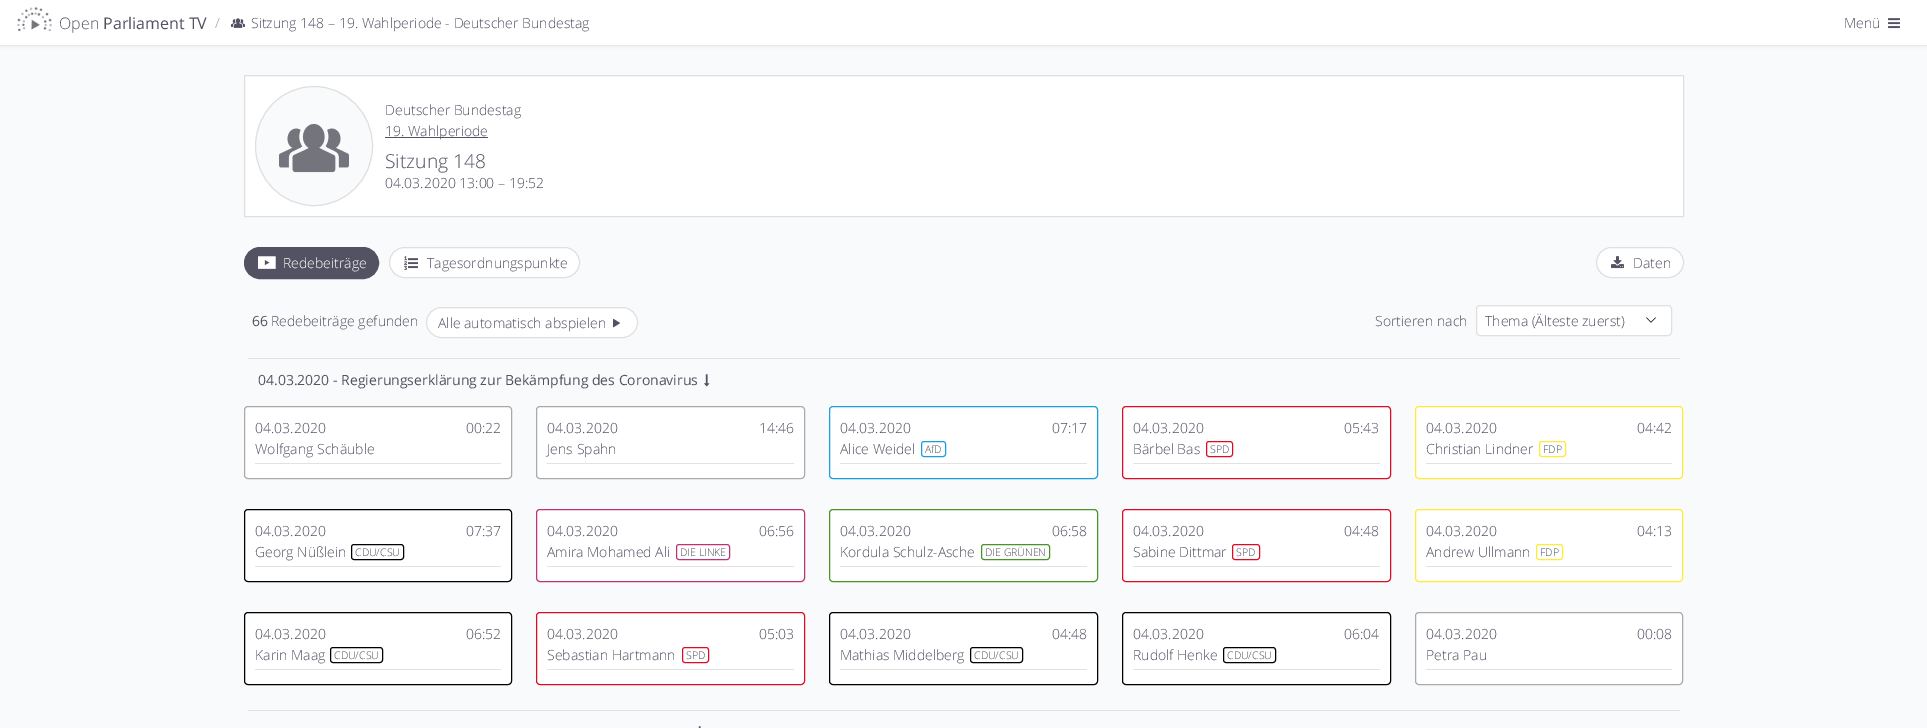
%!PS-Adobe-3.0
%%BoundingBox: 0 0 1927 728
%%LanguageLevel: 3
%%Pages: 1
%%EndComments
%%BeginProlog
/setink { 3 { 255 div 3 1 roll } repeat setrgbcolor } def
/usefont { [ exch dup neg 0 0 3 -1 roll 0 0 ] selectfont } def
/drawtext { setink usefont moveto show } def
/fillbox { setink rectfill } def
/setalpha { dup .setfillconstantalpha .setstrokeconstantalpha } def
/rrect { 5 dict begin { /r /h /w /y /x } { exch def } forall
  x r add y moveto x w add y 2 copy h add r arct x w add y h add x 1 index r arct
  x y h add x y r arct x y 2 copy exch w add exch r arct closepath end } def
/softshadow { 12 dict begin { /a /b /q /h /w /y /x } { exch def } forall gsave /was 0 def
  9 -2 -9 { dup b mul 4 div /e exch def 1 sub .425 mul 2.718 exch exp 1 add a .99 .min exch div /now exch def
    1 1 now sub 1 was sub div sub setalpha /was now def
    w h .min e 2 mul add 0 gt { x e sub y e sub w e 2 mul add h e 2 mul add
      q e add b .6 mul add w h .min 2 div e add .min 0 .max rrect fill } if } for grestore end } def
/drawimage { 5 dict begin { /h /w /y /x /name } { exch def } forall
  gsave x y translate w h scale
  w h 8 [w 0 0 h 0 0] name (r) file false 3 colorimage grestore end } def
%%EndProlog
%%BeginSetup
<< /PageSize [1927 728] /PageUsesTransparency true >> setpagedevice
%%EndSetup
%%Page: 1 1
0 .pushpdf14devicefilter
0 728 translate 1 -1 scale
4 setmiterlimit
0 0 1927 728 249 250 251 fillbox
207 207 207 setink
0 0 1927 45 0 2 1 softshadow
0 0 1927 45 255 255 255 fillbox
(assets/img1.rgb) 17 7 35 25 drawimage
(Open) 59 29 /OpenSans-Light 16 83 82 99 drawtext
(Parliament TV) 103 29 /OpenSans-Regular 16 83 82 99 drawtext
(/) 215 28 /OpenSans-Light 14 152 151 161 drawtext
(assets/img2.rgb) 231 18 14 10 drawimage
(Sitzung 148 – 19. Wahlperiode - Deutscher Bundestag) 251 28 /OpenSans-Light 14 83 82 99 drawtext
(Menü) 1844 28 /OpenSans-Light 14 83 82 99 drawtext
(assets/img3.rgb) 1888 18 12 11 drawimage
255 255 255 setink
244.5 75.5 moveto 1683.5 75.5 lineto 1683.5 216.5 lineto 244.5 216.5 lineto closepath gsave fill grestore
223 223 223 setink
stroke
249 250 251 setink
314 86 moveto 346.5 86 373 113 373 146 curveto 373 179 346.5 206 314 206 curveto 281.5 206 255 179 255 146 curveto 255 113 281.5 86 314 86 curveto closepath fill
223 223 223 setink
314 86.5 moveto 346.5 86.5 372.5 113 372.5 146 curveto 372.5 179 346.5 205.5 314 205.5 curveto 281.5 205.5 255.5 179 255.5 146 curveto 255.5 113 281.5 86.5 314 86.5 curveto closepath stroke
(assets/img4.rgb) 279 123 70 50 drawimage
(Deutscher Bundestag) 385 115 /OpenSans-Light 14 83 82 99 drawtext
385 137 103 1 83 82 99 fillbox
(19. Wahlperiode) 385 136 /OpenSans-Light 14 83 82 99 drawtext
(Sitzung 148) 385 168 /OpenSans-Light 19.25 83 82 99 drawtext
(04.03.2020 13:00 – 19:52) 385 188 /OpenSans-Light 14 83 82 99 drawtext
244.5 247.5 134 31 15.5 rrect gsave fill grestore
stroke
(assets/img5.rgb) 258 256 18 13 drawimage
(Redebeiträge) 283 268 /OpenSans-Light 14 255 255 255 drawtext
389.5 247.5 190 30 15 rrect gsave fill grestore
223 223 223 setink
stroke
(assets/img6.rgb) 404 256 14 15 drawimage
(Tagesordnungspunkte) 427 268 /OpenSans-Light 14 83 82 99 drawtext
255 255 255 setink
1596.5 247.5 87 30 15 rrect gsave fill grestore
223 223 223 setink
stroke
(assets/img7.rgb) 1611 256 13 13 drawimage
(Daten) 1633 268 /OpenSans-Light 14 83 82 99 drawtext
(66) 252 326 /OpenSans-Regular 14 83 82 99 drawtext
(Redebeiträge gefunden) 271 326 /OpenSans-Light 14 83 82 99 drawtext
255 255 255 setink
426.5 307.5 211 30 15 rrect gsave fill grestore
223 223 223 setink
stroke
(Alle automatisch abspielen) 438 328 /OpenSans-Light 14 83 82 99 drawtext
(assets/img8.rgb) 613 318 7 10 drawimage
(Sortieren nach) 1375 326 /OpenSans-Light 14 83 82 99 drawtext
255 255 255 setink
1476 305 196 31 4 rrect fill
(assets/img9.rgb) 1646 317 10 6 drawimage
223 223 223 setink
1476.5 305.5 195 30 3.5 rrect stroke
(Thema \(Älteste zuerst\)) 1485 326 /OpenSans-Light 14 83 82 99 drawtext
248 358 1432 1 223 223 223 fillbox
(04.03.2020 - Regierungserklärung zur Bekämpfung des Coronavirus) 258 385 /OpenSans-Regular 14 83 82 99 drawtext
(assets/img10.rgb) 704 374 6 13 drawimage
255 255 255 setink
244.5 406.5 267 72 3.5 rrect gsave fill grestore
170 170 170 setink
stroke
(04.03.2020) 255 433 /OpenSans-Light 14 83 82 99 drawtext
(00:22) 466 433 /OpenSans-Light 14 83 82 99 drawtext
(Wolfgang Schäuble) 255 454 /OpenSans-Light 14 83 82 99 drawtext
255 463 246 1 226 226 226 fillbox
255 255 255 setink
536.5 406.5 268 72 3.5 rrect gsave fill grestore
170 170 170 setink
stroke
(04.03.2020) 547 433 /OpenSans-Light 14 83 82 99 drawtext
(14:46) 759 433 /OpenSans-Light 14 83 82 99 drawtext
(Jens Spahn) 547 454 /OpenSans-Light 14 83 82 99 drawtext
547 463 247 1 226 226 226 fillbox
255 255 255 setink
829.5 406.5 268 72 3.5 rrect gsave fill grestore
26 159 221 setink
stroke
(04.03.2020) 840 433 /OpenSans-Light 14 83 82 99 drawtext
(07:17) 1052 433 /OpenSans-Light 14 83 82 99 drawtext
(Alice Weidel) 840 454 /OpenSans-Light 14 83 82 99 drawtext
26 159 221 setink
921.5 441.5 24 15 2.5 rrect stroke
(AfD) 925 453 /OpenSans-Light 10.5 83 82 99 drawtext
840 463 247 1 226 226 226 fillbox
255 255 255 setink
1122.5 406.5 268 72 3.5 rrect gsave fill grestore
223 11 37 setink
stroke
(04.03.2020) 1133 433 /OpenSans-Light 14 83 82 99 drawtext
(05:43) 1344 433 /OpenSans-Light 14 83 82 99 drawtext
(Bärbel Bas) 1133 454 /OpenSans-Light 14 83 82 99 drawtext
223 11 37 setink
1206.5 441.5 26 15 2.5 rrect stroke
(SPD) 1210 453 /OpenSans-Light 10.5 83 82 99 drawtext
1133 463 247 1 226 226 226 fillbox
255 255 255 setink
1415.5 406.5 267 72 3.5 rrect gsave fill grestore
254 235 52 setink
stroke
(04.03.2020) 1426 433 /OpenSans-Light 14 83 82 99 drawtext
(04:42) 1637 433 /OpenSans-Light 14 83 82 99 drawtext
(Christian Lindner) 1426 454 /OpenSans-Light 14 83 82 99 drawtext
254 235 52 setink
1539.5 441.5 26 15 2.5 rrect stroke
(FDP) 1543 453 /OpenSans-Light 10.5 83 82 99 drawtext
1426 463 246 1 226 226 226 fillbox
255 255 255 setink
244.5 509.5 267 72 3.5 rrect gsave fill grestore
0 0 0 setink
stroke
(04.03.2020) 255 536 /OpenSans-Light 14 83 82 99 drawtext
(07:37) 466 536 /OpenSans-Light 14 83 82 99 drawtext
(Georg Nüßlein) 255 557 /OpenSans-Light 14 83 82 99 drawtext
0 0 0 setink
351.5 544.5 52 15 2.5 rrect stroke
(CDU/CSU) 355 556 /OpenSans-Light 10.5 83 82 99 drawtext
255 566 246 1 226 226 226 fillbox
255 255 255 setink
536.5 509.5 268 72 3.5 rrect gsave fill grestore
188 52 117 setink
stroke
(04.03.2020) 547 536 /OpenSans-Light 14 83 82 99 drawtext
(06:56) 759 536 /OpenSans-Light 14 83 82 99 drawtext
(Amira Mohamed Ali) 547 557 /OpenSans-Light 14 83 82 99 drawtext
188 52 117 setink
676.5 544.5 53 15 2.5 rrect stroke
(DIE LINKE) 680 556 /OpenSans-Light 10.5 83 82 99 drawtext
547 566 247 1 226 226 226 fillbox
255 255 255 setink
829.5 509.5 268 72 3.5 rrect gsave fill grestore
74 147 43 setink
stroke
(04.03.2020) 840 536 /OpenSans-Light 14 83 82 99 drawtext
(06:58) 1052 536 /OpenSans-Light 14 83 82 99 drawtext
(Kordula Schulz-Asche) 840 557 /OpenSans-Light 14 83 82 99 drawtext
74 147 43 setink
981.5 544.5 68 15 2.5 rrect stroke
(DIE GRÜNEN) 985 556 /OpenSans-Light 10.5 83 82 99 drawtext
840 566 247 1 226 226 226 fillbox
255 255 255 setink
1122.5 509.5 268 72 3.5 rrect gsave fill grestore
223 11 37 setink
stroke
(04.03.2020) 1133 536 /OpenSans-Light 14 83 82 99 drawtext
(04:48) 1344 536 /OpenSans-Light 14 83 82 99 drawtext
(Sabine Dittmar) 1133 557 /OpenSans-Light 14 83 82 99 drawtext
223 11 37 setink
1232.5 544.5 27 15 2.5 rrect stroke
(SPD) 1236 556 /OpenSans-Light 10.5 83 82 99 drawtext
1133 566 247 1 226 226 226 fillbox
255 255 255 setink
1415.5 509.5 267 72 3.5 rrect gsave fill grestore
254 235 52 setink
stroke
(04.03.2020) 1426 536 /OpenSans-Light 14 83 82 99 drawtext
(04:13) 1637 536 /OpenSans-Light 14 83 82 99 drawtext
(Andrew Ullmann) 1426 557 /OpenSans-Light 14 83 82 99 drawtext
254 235 52 setink
1536.5 544.5 26 15 2.5 rrect stroke
(FDP) 1540 556 /OpenSans-Light 10.5 83 82 99 drawtext
1426 566 246 1 226 226 226 fillbox
255 255 255 setink
244.5 612.5 267 72 3.5 rrect gsave fill grestore
0 0 0 setink
stroke
(04.03.2020) 255 639 /OpenSans-Light 14 83 82 99 drawtext
(06:52) 466 639 /OpenSans-Light 14 83 82 99 drawtext
(Karin Maag) 255 660 /OpenSans-Light 14 83 82 99 drawtext
0 0 0 setink
330.5 647.5 52 15 2.5 rrect stroke
(CDU/CSU) 334 659 /OpenSans-Light 10.5 83 82 99 drawtext
255 669 246 1 226 226 226 fillbox
255 255 255 setink
536.5 612.5 268 72 3.5 rrect gsave fill grestore
223 11 37 setink
stroke
(04.03.2020) 547 639 /OpenSans-Light 14 83 82 99 drawtext
(05:03) 759 639 /OpenSans-Light 14 83 82 99 drawtext
(Sebastian Hartmann) 547 660 /OpenSans-Light 14 83 82 99 drawtext
223 11 37 setink
682.5 647.5 26 15 2.5 rrect stroke
(SPD) 686 659 /OpenSans-Light 10.5 83 82 99 drawtext
547 669 247 1 226 226 226 fillbox
255 255 255 setink
829.5 612.5 268 72 3.5 rrect gsave fill grestore
0 0 0 setink
stroke
(04.03.2020) 840 639 /OpenSans-Light 14 83 82 99 drawtext
(04:48) 1052 639 /OpenSans-Light 14 83 82 99 drawtext
(Mathias Middelberg) 840 660 /OpenSans-Light 14 83 82 99 drawtext
0 0 0 setink
970.5 647.5 52 15 2.5 rrect stroke
(CDU/CSU) 974 659 /OpenSans-Light 10.5 83 82 99 drawtext
840 669 247 1 226 226 226 fillbox
255 255 255 setink
1122.5 612.5 268 72 3.5 rrect gsave fill grestore
0 0 0 setink
stroke
(04.03.2020) 1133 639 /OpenSans-Light 14 83 82 99 drawtext
(06:04) 1344 639 /OpenSans-Light 14 83 82 99 drawtext
(Rudolf Henke) 1133 660 /OpenSans-Light 14 83 82 99 drawtext
0 0 0 setink
1223.5 647.5 52 15 2.5 rrect stroke
(CDU/CSU) 1227 659 /OpenSans-Light 10.5 83 82 99 drawtext
1133 669 247 1 226 226 226 fillbox
255 255 255 setink
1415.5 612.5 267 72 3.5 rrect gsave fill grestore
170 170 170 setink
stroke
(04.03.2020) 1426 639 /OpenSans-Light 14 83 82 99 drawtext
(00:08) 1637 639 /OpenSans-Light 14 83 82 99 drawtext
(Petra Pau) 1426 660 /OpenSans-Light 14 83 82 99 drawtext
1426 669 246 1 226 226 226 fillbox
248 710 1432 1 223 223 223 fillbox
(assets/img11.rgb) 698 726 3 2 drawimage
.poppdf14devicefilter showpage
%%EOF
